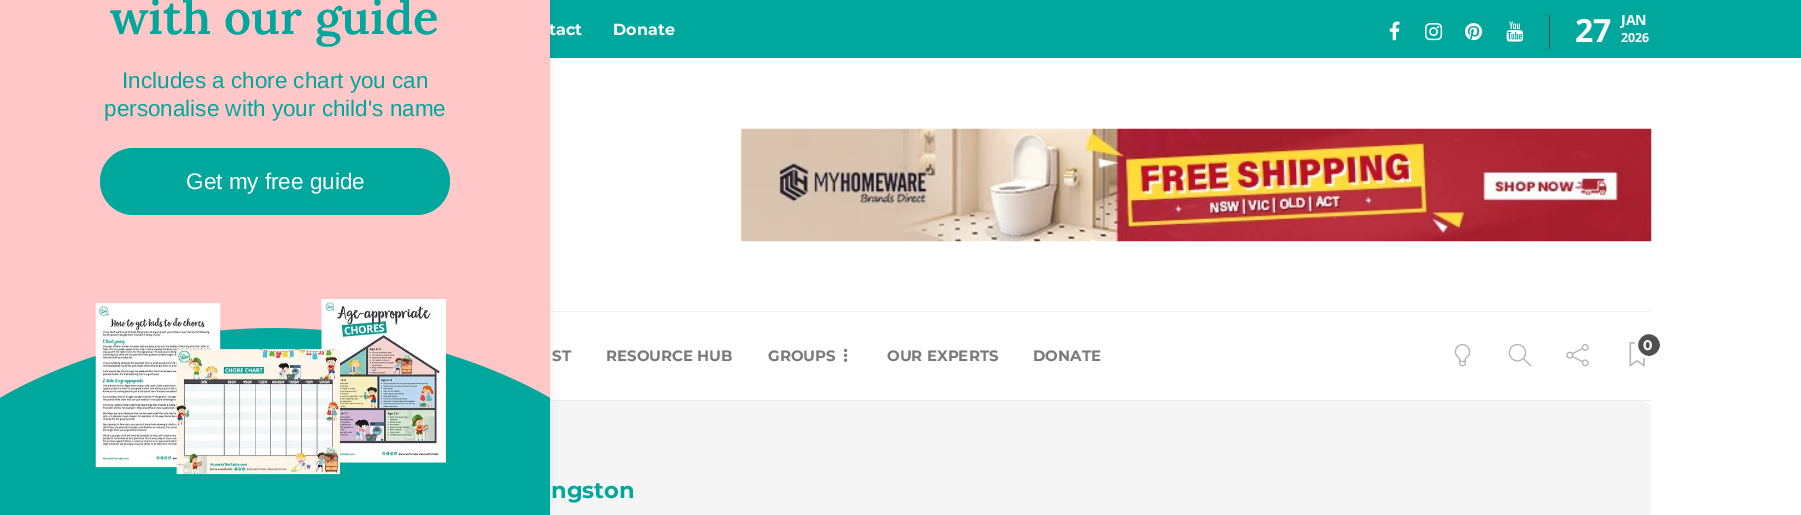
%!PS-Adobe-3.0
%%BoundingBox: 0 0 1801 515
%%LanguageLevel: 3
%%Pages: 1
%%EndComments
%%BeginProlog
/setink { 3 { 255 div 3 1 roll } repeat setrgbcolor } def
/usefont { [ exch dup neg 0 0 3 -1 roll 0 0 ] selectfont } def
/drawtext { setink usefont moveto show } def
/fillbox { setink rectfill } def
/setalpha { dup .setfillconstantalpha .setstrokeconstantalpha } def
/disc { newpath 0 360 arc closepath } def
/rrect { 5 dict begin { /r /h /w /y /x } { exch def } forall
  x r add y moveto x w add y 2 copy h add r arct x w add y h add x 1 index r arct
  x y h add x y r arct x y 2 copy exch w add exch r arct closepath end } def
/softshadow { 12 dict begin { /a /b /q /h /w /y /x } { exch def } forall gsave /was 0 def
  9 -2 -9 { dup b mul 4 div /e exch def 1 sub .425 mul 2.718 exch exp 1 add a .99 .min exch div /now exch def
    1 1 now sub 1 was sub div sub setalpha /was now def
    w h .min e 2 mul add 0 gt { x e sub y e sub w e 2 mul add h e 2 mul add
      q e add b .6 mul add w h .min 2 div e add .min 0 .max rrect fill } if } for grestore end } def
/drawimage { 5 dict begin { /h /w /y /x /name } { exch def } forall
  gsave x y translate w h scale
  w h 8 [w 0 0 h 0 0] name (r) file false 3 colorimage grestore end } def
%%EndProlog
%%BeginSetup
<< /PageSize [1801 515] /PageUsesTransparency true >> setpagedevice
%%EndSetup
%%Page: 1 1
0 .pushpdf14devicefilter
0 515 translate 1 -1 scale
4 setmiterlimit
0 0 1801 515 255 255 255 fillbox
550 0 1251 58 0 167 157 fillbox
550 311 1101 1 241 241 241 fillbox
550 400 1101 1 235 235 235 fillbox
245 245 245 setink
151 401 1500 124 10 rrect fill
0 0 0 setink
0 -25 550 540 13 4 0.1 softshadow
(tact) 549 35 /Montserrat-Bold 16 255 255 255 drawtext
0 0 550 398 255 199 199 fillbox
(with our guide) 110 34 /Lora-SemiBold 47.5 0 167 157 drawtext
(Includes a chore chart you can) 122 88 /LiberationSans-Regular 22.5 0 167 157 drawtext
(personalise with your child's name) 104 116 /LiberationSans-Regular 22.5 0 167 157 drawtext
100 148 350 67 33.5 rrect fill
(Get my free guide) 186 189 /LiberationSans-Regular 22.5 255 255 255 drawtext
0 167 157 setink
550 398 moveto 550 515 lineto 0 515 lineto 0 398 lineto 19 387 122 328 274 328 curveto 426 328 531 387 550 398 curveto closepath fill
(assets/img1.rgb) 95 299 351 176 drawimage
(Donate) 613 35 /Montserrat-Bold 16 255 255 255 drawtext
1549 15 1 34 67 67 67 fillbox
(assets/img2.rgb) 1389 21 11 20 drawimage
(assets/img3.rgb) 1425 23 18 18 drawimage
(assets/img4.rgb) 1465 23 18 18 drawimage
(assets/img5.rgb) 1506 21 18 21 drawimage
(27) 1575 42 /OpenSans-Bold 32 255 255 255 drawtext
(JAN) 1621 25 /OpenSans-Bold 14 255 255 255 drawtext
(2026) 1621 42 /OpenSans-Bold 12.5 255 255 255 drawtext
(assets/img6.rgb) 741 128 911 114 drawimage
(assets/img7.rgb) 1454 343 17 24 drawimage
(assets/img8.rgb) 1508 343 24 24 drawimage
(assets/img9.rgb) 1566 344 23 23 drawimage
(assets/img10.rgb) 1629 342 16 25 drawimage
80 80 80 setink
1649 345 12.5 disc gsave fill grestore
255 255 255 setink
3 setlinewidth
stroke
(0) 1643 350 /Montserrat-Bold 14 255 255 255 drawtext
(ST) 552 361 /Montserrat-Bold 15 121 121 121 drawtext
(RESOURCE HUB) 606 361 /Montserrat-Bold 15 121 121 121 drawtext
(GROUPS) 768 361 /Montserrat-Bold 15 121 121 121 drawtext
(assets/img11.rgb) 843 348 5 14 drawimage
(OUR EXPERTS) 887 361 /Montserrat-Bold 15 121 121 121 drawtext
(DONATE) 1033 361 /Montserrat-Bold 15 121 121 121 drawtext
(ngston) 551 498 /Montserrat-Bold 22.5 0 167 157 drawtext
.poppdf14devicefilter showpage
%%EOF
